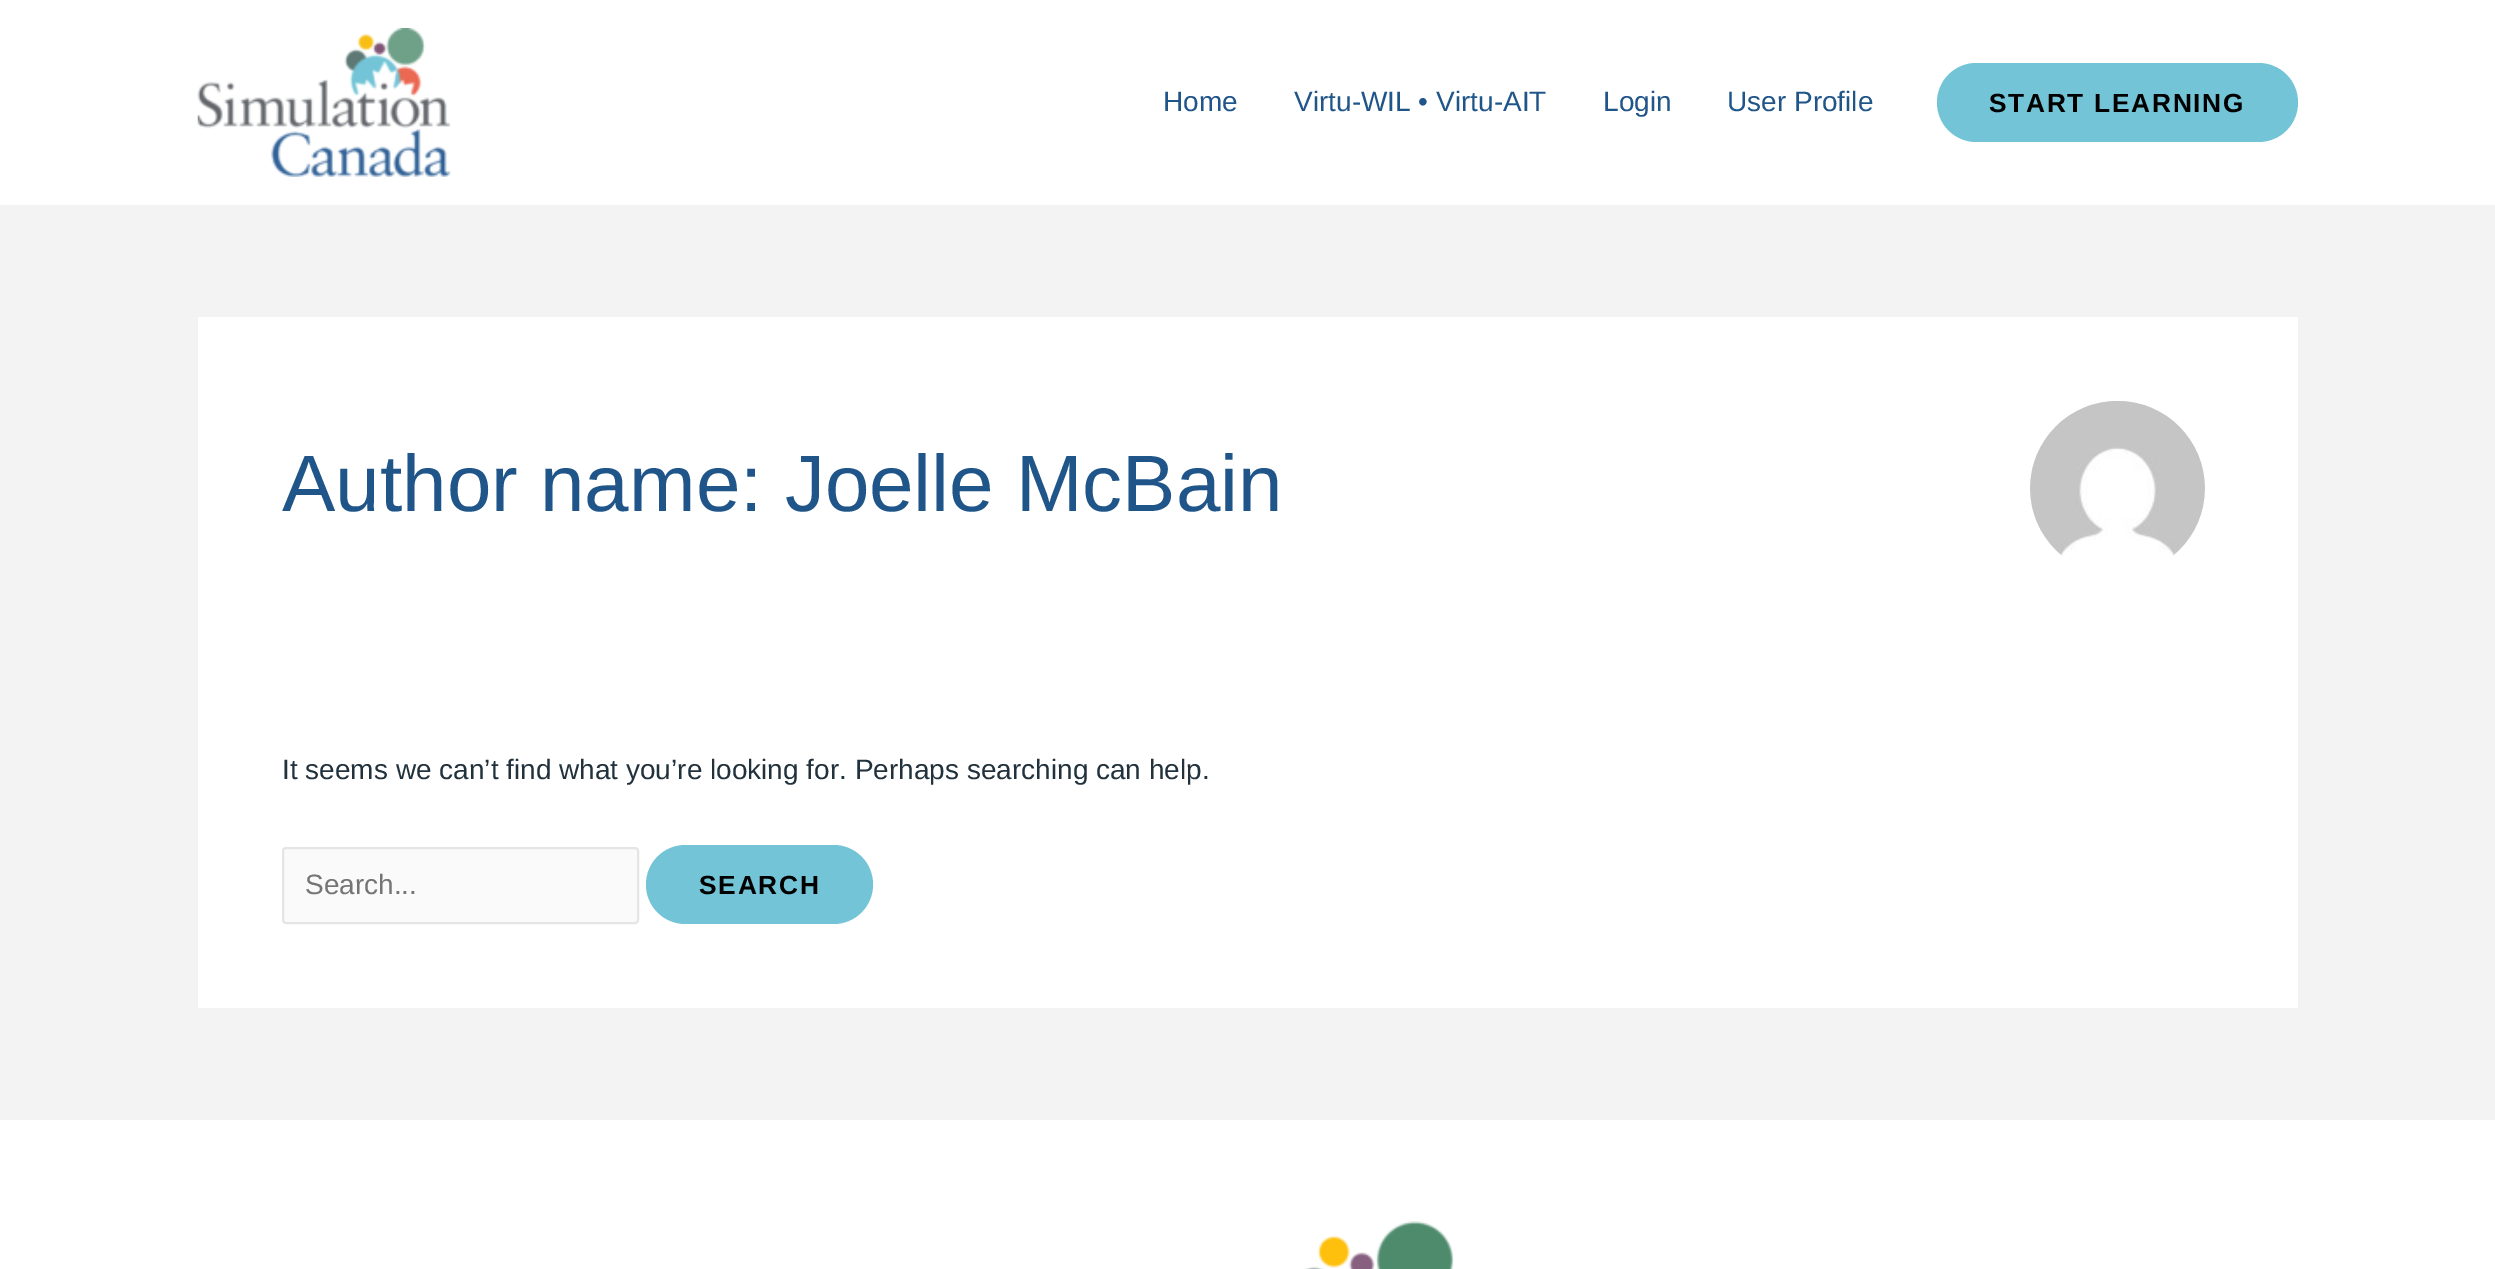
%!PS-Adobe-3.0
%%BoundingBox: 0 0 2495 1269
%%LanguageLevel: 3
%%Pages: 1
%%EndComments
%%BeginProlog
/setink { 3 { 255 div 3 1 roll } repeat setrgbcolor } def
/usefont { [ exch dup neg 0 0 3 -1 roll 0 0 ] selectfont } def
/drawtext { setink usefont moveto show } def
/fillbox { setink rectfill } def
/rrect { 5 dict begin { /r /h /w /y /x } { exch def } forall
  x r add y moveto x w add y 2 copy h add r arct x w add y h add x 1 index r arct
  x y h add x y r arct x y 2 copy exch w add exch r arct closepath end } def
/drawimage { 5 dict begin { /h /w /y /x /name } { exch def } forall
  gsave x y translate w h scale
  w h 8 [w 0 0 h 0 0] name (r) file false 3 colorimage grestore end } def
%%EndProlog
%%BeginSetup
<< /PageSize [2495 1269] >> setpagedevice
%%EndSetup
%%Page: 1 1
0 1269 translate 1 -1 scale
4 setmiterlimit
0 0 2495 1269 243 243 243 fillbox
0 0 2495 205 255 255 255 fillbox
(assets/img1.rgb) 197 28 255 149 drawimage
(Home) 1163 111 /LiberationSans-Regular 28 32 85 138 drawtext
(Virtu-WIL • Virtu-AIT) 1294 111 /LiberationSans-Regular 28 32 85 138 drawtext
(Login) 1603 111 /LiberationSans-Regular 28 32 85 138 drawtext
(User Profile) 1727 111 /LiberationSans-Regular 28 32 85 138 drawtext
114 196 214 setink
1937 63 361 79 39.5 rrect fill
/LiberationSans-Bold 26.25 usefont
0 0 0 setink
1989 112 moveto 1.75 0 (START LEARNING) ashow
198 317 2100 691 255 255 255 fillbox
(Author name: Joelle McBain) 282 511 /LiberationSans-Regular 80 32 85 138 drawtext
(assets/img2.rgb) 2030 401 175 155 drawimage
(It seems we can’t find what you’re looking for. Perhaps searching can help.) 282 779 /LiberationSans-Regular 28 34 50 61 drawtext
250 250 250 setink
283 848 355 75 3 rrect gsave fill grestore
229 229 229 setink
2 setlinewidth
stroke
(Search...) 305 894 /LiberationSans-Regular 28 117 117 117 drawtext
114 196 214 setink
646 845 227 79 39.5 rrect fill
/LiberationSans-Bold 26.25 usefont
0 0 0 setink
699 894 moveto 1.75 0 (SEARCH) ashow
0 1120 2495 149 255 255 255 fillbox
(assets/img3.rgb) 1304 1221 150 48 drawimage
showpage
%%EOF
